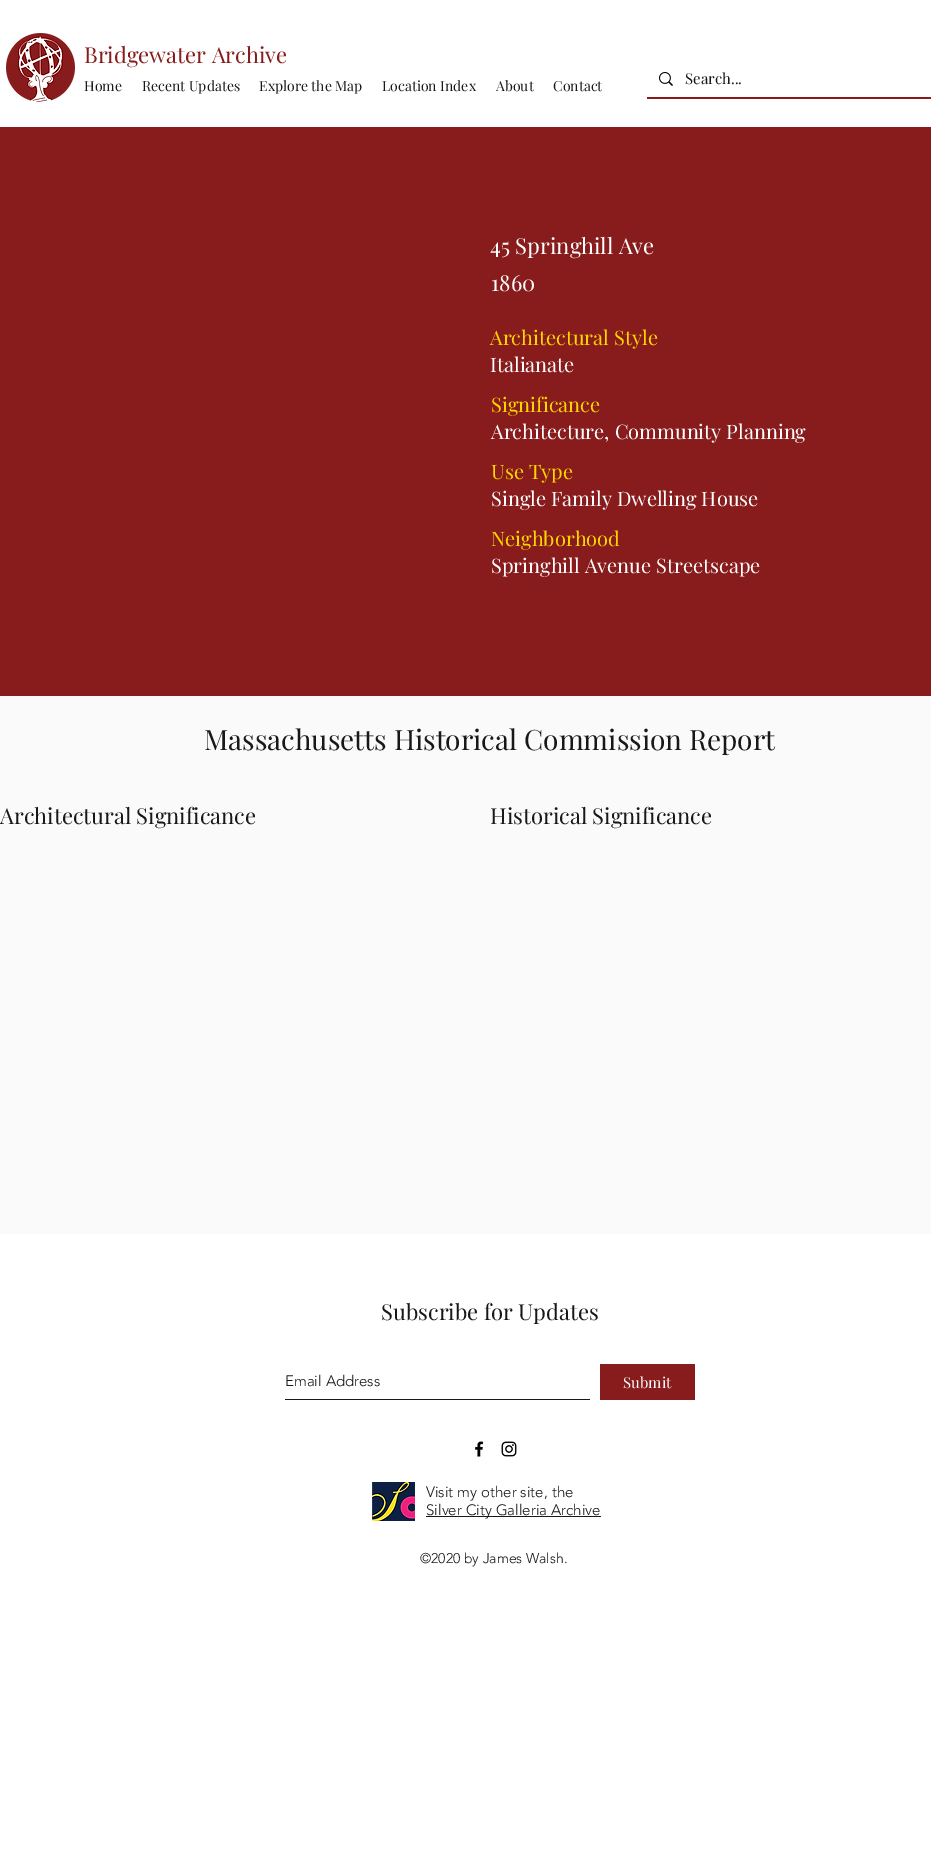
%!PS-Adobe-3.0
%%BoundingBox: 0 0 931 1862
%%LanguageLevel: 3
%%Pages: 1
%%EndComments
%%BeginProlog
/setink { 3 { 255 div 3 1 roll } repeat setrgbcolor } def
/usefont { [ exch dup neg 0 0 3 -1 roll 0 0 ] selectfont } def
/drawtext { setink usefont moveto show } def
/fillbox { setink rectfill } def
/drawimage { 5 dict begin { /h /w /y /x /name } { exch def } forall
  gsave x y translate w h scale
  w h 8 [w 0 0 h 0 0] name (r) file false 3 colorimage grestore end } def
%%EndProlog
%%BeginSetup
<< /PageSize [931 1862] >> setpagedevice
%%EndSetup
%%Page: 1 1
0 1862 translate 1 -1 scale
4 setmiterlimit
0 0 931 1862 255 255 255 fillbox
(assets/img1.rgb) 6 33 69 69 drawimage
(Bridgewater Archive) 84 63 /PlayfairDisplay-Regular 22 136 28 28 drawtext
(Home) 84 91 /PlayfairDisplay-Regular 14 24 24 24 drawtext
(Recent Updates) 142 91 /PlayfairDisplay-Regular 14 24 24 24 drawtext
(Explore the Map) 259 91 /PlayfairDisplay-Regular 14 24 24 24 drawtext
(Location Index) 382 91 /PlayfairDisplay-Regular 14 24 24 24 drawtext
(About) 496 91 /PlayfairDisplay-Regular 14 24 24 24 drawtext
(Contact) 553 91 /PlayfairDisplay-Regular 14 24 24 24 drawtext
647 97 284 2 136 28 28 fillbox
(assets/img2.rgb) 659 72 14 14 drawimage
(Search...) 685 84 /PlayfairDisplay-Regular 15 24 24 24 drawtext
0 127 931 569 136 28 28 fillbox
(45 Springhill Ave) 490 254 /PlayfairDisplay-Regular 22 255 255 255 drawtext
(1860) 491 291 /PlayfairDisplay-Regular 22 255 255 255 drawtext
(Architectural Style) 490 345 /PlayfairDisplay-Regular 20 255 215 0 drawtext
(Italianate) 490 372 /PlayfairDisplay-Regular 20 255 255 255 drawtext
(Significance) 491 412 /PlayfairDisplay-Regular 20 255 215 0 drawtext
(Architecture, Community Planning) 491 439 /PlayfairDisplay-Regular 20 255 255 255 drawtext
(Use Type) 491 479 /PlayfairDisplay-Regular 20 255 215 0 drawtext
(Single Family Dwelling House) 491 506 /PlayfairDisplay-Regular 20 255 255 255 drawtext
(Neighborhood) 491 546 /PlayfairDisplay-Regular 20 255 215 0 drawtext
(Springhill Avenue Streetscape) 491 573 /PlayfairDisplay-Regular 20 255 255 255 drawtext
0 696 931 86 250 250 250 fillbox
(Massachusetts Historical Commission Report) 204 750 /PlayfairDisplay-Regular 28 24 24 24 drawtext
0 782 931 452 250 250 250 fillbox
(Architectural Significance) 0 824 /PlayfairDisplay-Regular 22 24 24 24 drawtext
(Historical Significance) 490 824 /PlayfairDisplay-Regular 22 24 24 24 drawtext
(Subscribe for Updates) 381 1320 /PlayfairDisplay-Regular 22 24 24 24 drawtext
285 1399 305 1 24 24 24 fillbox
(Email Address) 285 1386 /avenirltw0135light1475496-Light 15 24 24 24 drawtext
600 1364 95 36 136 28 28 fillbox
(Submit) 623 1388 /PlayfairDisplay-Regular 15 255 255 255 drawtext
(assets/img3.rgb) 475 1441 9 16 drawimage
(assets/img4.rgb) 501 1441 16 16 drawimage
(assets/img5.rgb) 372 1482 43 39 drawimage
(Visit my other site, the) 426 1497 /avenirltw0135light1475496-Light 15 24 24 24 drawtext
426 1516 175 1 24 24 24 fillbox
(Silver City Galleria Archive) 426 1515 /avenirltw0135light1475496-Light 15 24 24 24 drawtext
(©2020 by James Walsh.) 420 1563 /avenirltw0135light1475496-Light 14 24 24 24 drawtext
showpage
%%EOF
